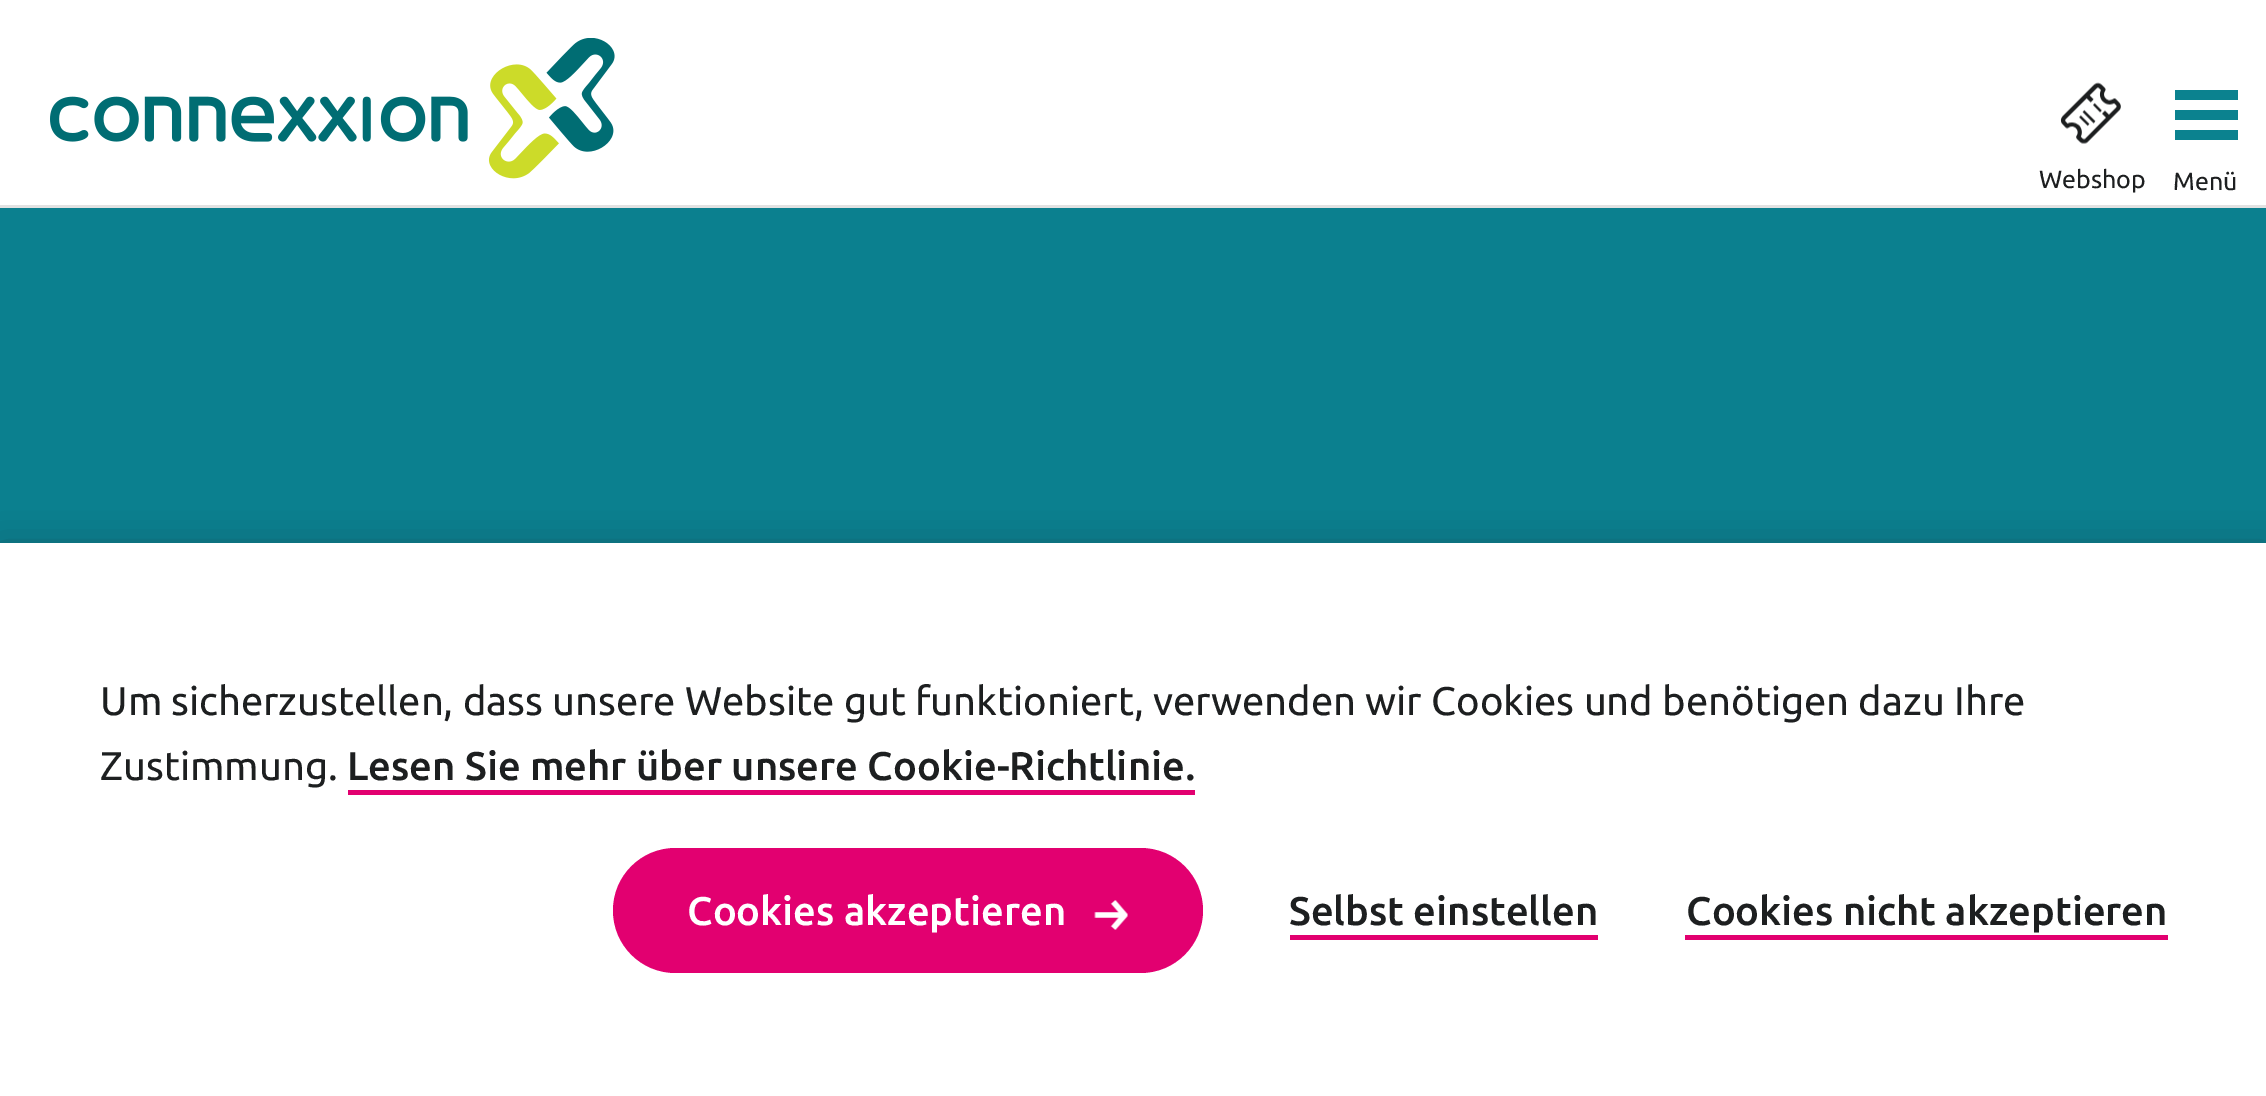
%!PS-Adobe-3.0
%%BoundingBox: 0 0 2266 1096
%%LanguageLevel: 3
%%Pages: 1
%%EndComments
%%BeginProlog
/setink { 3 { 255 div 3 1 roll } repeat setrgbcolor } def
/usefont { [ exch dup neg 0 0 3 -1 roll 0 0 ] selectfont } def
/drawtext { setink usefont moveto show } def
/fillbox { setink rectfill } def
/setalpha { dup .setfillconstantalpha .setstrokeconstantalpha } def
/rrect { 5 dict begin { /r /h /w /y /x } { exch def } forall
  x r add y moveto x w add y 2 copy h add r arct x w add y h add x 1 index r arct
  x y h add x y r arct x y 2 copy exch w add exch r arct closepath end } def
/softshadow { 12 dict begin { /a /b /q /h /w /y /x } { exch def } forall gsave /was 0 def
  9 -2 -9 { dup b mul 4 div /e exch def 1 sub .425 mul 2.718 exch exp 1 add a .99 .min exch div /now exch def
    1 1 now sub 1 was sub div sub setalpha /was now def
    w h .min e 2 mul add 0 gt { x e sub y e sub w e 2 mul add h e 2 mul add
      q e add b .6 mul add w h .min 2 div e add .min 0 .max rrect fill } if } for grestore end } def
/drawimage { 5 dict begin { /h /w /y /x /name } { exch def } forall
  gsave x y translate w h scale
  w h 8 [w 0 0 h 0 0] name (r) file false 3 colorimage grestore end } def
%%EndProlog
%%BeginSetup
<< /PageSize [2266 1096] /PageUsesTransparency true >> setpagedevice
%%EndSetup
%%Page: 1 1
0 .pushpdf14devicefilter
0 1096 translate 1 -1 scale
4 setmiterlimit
0 0 2266 1096 255 255 255 fillbox
0 205 2266 3 226 226 226 fillbox
(assets/img1.rgb) 50 38 565 141 drawimage
(assets/img2.rgb) 2060 82 61 62 drawimage
(Webshop) 2039 188 /Ubuntu-Regular 25 29 31 32 drawtext
2175 90 63 10 11 130 143 fillbox
2175 110 63 10 11 130 143 fillbox
2175 130 63 10 11 130 143 fillbox
(Menü) 2173 190 /Ubuntu-Regular 25 29 31 32 drawtext
gsave 0 208 moveto 2266 208 lineto 2266 543 lineto 0 543 lineto closepath clip newpath
<< /ShadingType 2 /ColorSpace /DeviceRGB /Coords [1134 207 1134 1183] /Extend [true true] /Function << /FunctionType 3 /Domain [0 1] /Functions [<< /FunctionType 2 /Domain [0 1] /C0 [0.043 0.502 0.561] /C1 [0.043 0.502 0.561] /N 1 >> << /FunctionType 2 /Domain [0 1] /C0 [0.043 0.502 0.561] /C1 [0.09 0.247 0.271] /N 1 >>] /Bounds [0.4] /Encode [0 1 0 1] >> >> shfill grestore
0 553 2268 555 0 19 0.45 softshadow
0 543 2266 553 255 255 255 fillbox
(Um sicherzustellen, dass unsere Website gut funktioniert, verwenden wir Cookies und benötigen dazu Ihre) 100 715 /Ubuntu-Regular 40 29 31 32 drawtext
(Zustimmung.) 100 780 /Ubuntu-Regular 40 29 31 32 drawtext
(Lesen Sie mehr über unsere Cookie-Richtlinie.) 347 780 /Ubuntu-Medium 40 29 31 32 drawtext
348 790 847 5 226 0 112 fillbox
613 848 590 125 62.5 rrect fill
(Cookies akzeptieren) 687 925 /Ubuntu-Medium 40 255 255 255 drawtext
(assets/img3.rgb) 1094 900 34 30 drawimage
(Selbst einstellen) 1289 925 /Ubuntu-Medium 40 29 31 32 drawtext
1290 935 308 5 226 0 112 fillbox
(Cookies nicht akzeptieren) 1686 925 /Ubuntu-Medium 40 29 31 32 drawtext
1685 935 483 5 226 0 112 fillbox
.poppdf14devicefilter showpage
%%EOF
